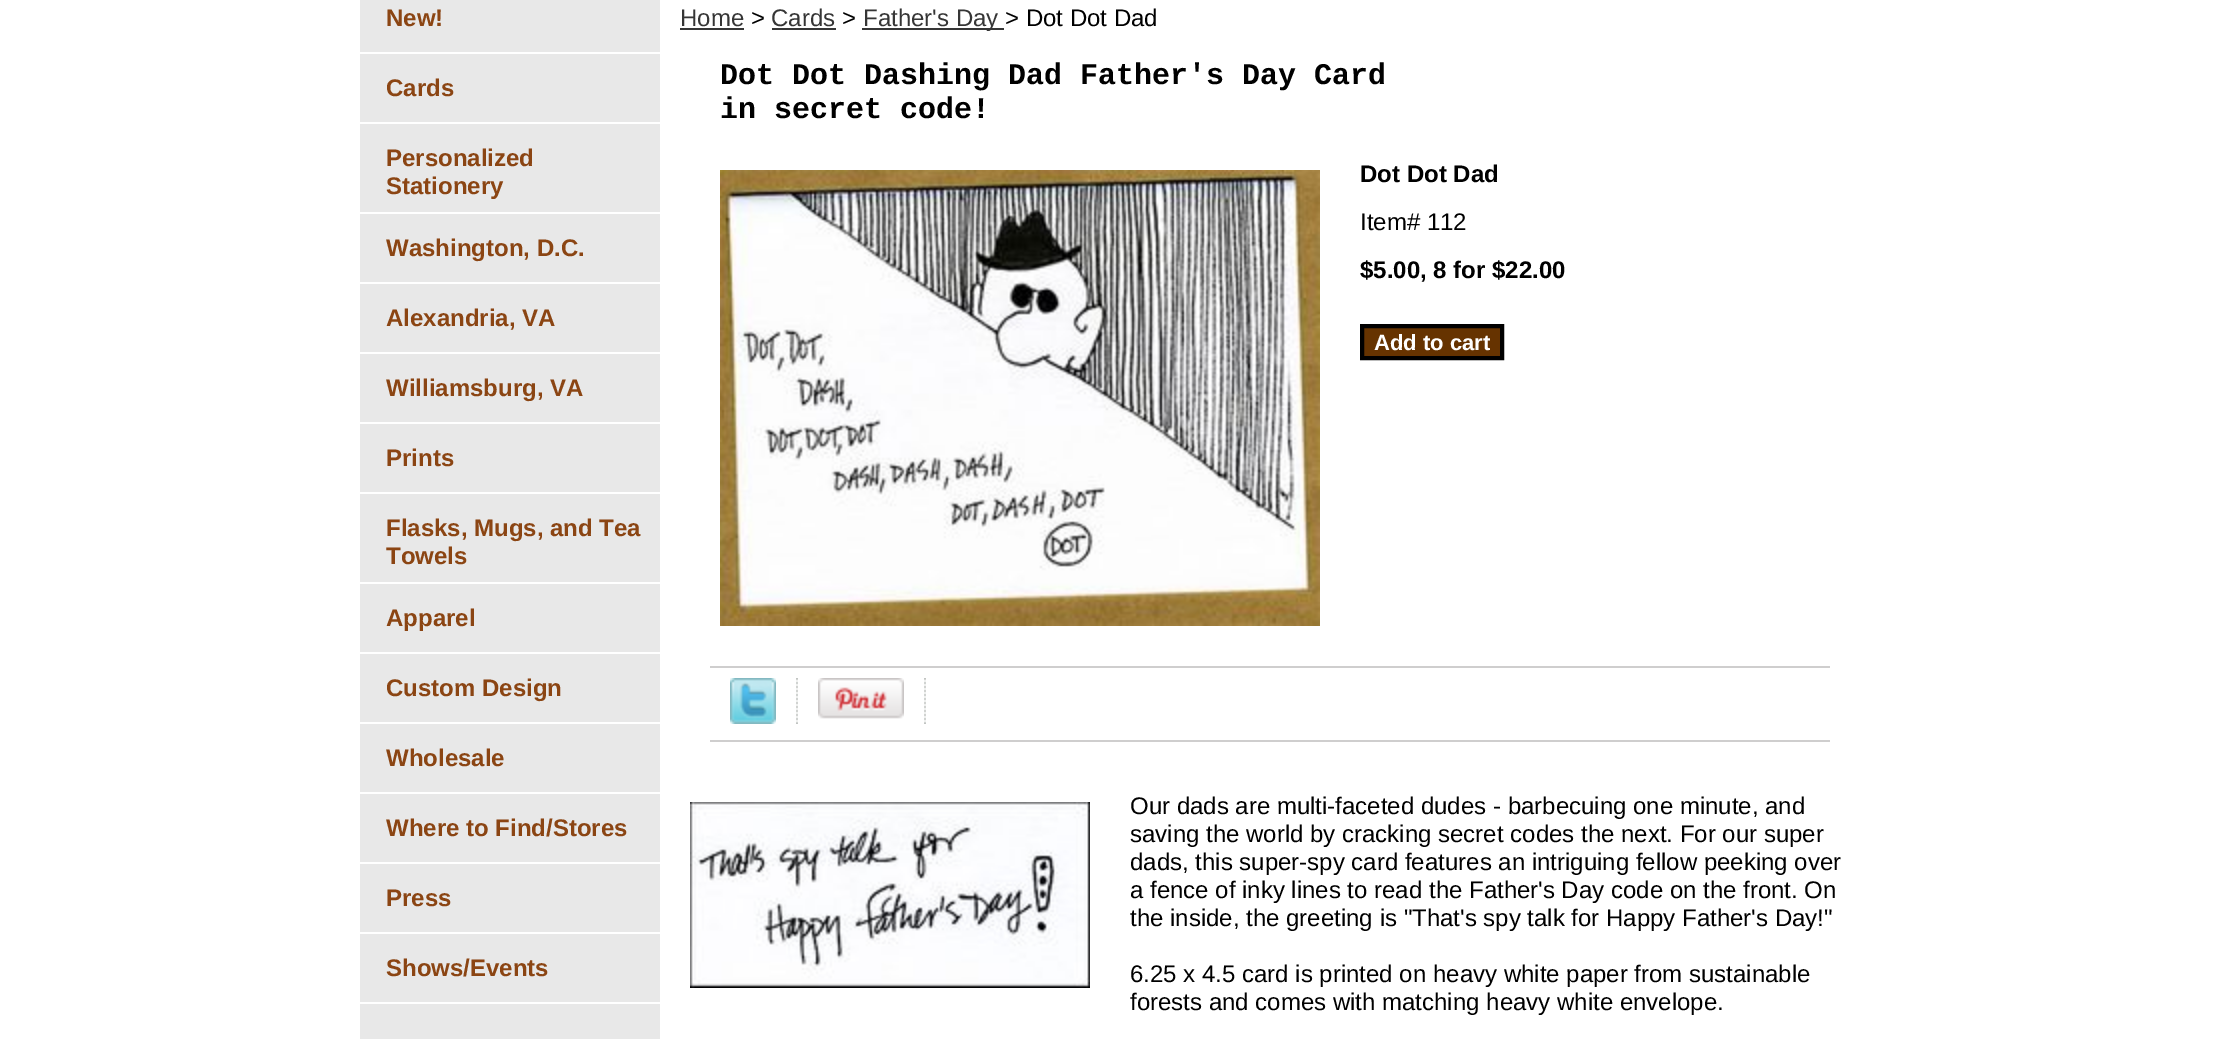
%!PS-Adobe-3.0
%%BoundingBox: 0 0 2240 1039
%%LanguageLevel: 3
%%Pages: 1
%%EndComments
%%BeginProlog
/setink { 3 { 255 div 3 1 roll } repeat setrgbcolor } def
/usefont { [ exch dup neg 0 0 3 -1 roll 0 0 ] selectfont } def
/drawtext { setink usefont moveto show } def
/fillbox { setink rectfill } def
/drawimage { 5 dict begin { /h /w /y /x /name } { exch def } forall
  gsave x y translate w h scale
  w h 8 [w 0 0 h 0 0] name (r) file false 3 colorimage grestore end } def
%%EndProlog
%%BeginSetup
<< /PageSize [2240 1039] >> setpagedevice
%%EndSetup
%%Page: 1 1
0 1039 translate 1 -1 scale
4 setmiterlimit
0 0 2240 1039 255 255 255 fillbox
360 0 300 1039 232 232 232 fillbox
360 52 300 2 255 255 255 fillbox
(New!) 386 26 /LiberationSans-Bold 24 139 69 19 drawtext
360 122 300 2 255 255 255 fillbox
(Cards) 386 96 /LiberationSans-Bold 24 139 69 19 drawtext
360 212 300 2 255 255 255 fillbox
(Personalized) 386 166 /LiberationSans-Bold 24 139 69 19 drawtext
(Stationery) 386 194 /LiberationSans-Bold 24 139 69 19 drawtext
360 282 300 2 255 255 255 fillbox
(Washington, D.C.) 386 256 /LiberationSans-Bold 24 139 69 19 drawtext
360 352 300 2 255 255 255 fillbox
(Alexandria, VA) 386 326 /LiberationSans-Bold 24 139 69 19 drawtext
360 422 300 2 255 255 255 fillbox
(Williamsburg, VA) 386 396 /LiberationSans-Bold 24 139 69 19 drawtext
360 492 300 2 255 255 255 fillbox
(Prints) 386 466 /LiberationSans-Bold 24 139 69 19 drawtext
360 582 300 2 255 255 255 fillbox
(Flasks, Mugs, and Tea) 386 536 /LiberationSans-Bold 24 139 69 19 drawtext
(Towels) 386 564 /LiberationSans-Bold 24 139 69 19 drawtext
360 652 300 2 255 255 255 fillbox
(Apparel) 386 626 /LiberationSans-Bold 24 139 69 19 drawtext
360 722 300 2 255 255 255 fillbox
(Custom Design) 386 696 /LiberationSans-Bold 24 139 69 19 drawtext
360 792 300 2 255 255 255 fillbox
(Wholesale) 386 766 /LiberationSans-Bold 24 139 69 19 drawtext
360 862 300 2 255 255 255 fillbox
(Where to Find/Stores) 386 836 /LiberationSans-Bold 24 139 69 19 drawtext
360 932 300 2 255 255 255 fillbox
(Press) 386 906 /LiberationSans-Bold 24 139 69 19 drawtext
360 1002 300 2 255 255 255 fillbox
(Shows/Events) 386 976 /LiberationSans-Bold 24 139 69 19 drawtext
(Home) 680 26 /LiberationSans-Regular 24 54 54 54 drawtext
680 28 64 2 54 54 54 fillbox
(>) 751 26 /LiberationSans-Regular 24 0 0 0 drawtext
(Cards) 771 26 /LiberationSans-Regular 24 54 54 54 drawtext
772 28 64 2 54 54 54 fillbox
(>) 842 26 /LiberationSans-Regular 24 0 0 0 drawtext
862 28 142 2 54 54 54 fillbox
(Father's Day) 863 26 /LiberationSans-Regular 24 54 54 54 drawtext
(> Dot Dot Dad) 1005 26 /LiberationSans-Regular 24 0 0 0 drawtext
(Dot Dot Dashing Dad Father's Day Card) 720 84 /LiberationMono-Bold 30 0 0 0 drawtext
(in secret code!) 720 118 /LiberationMono-Bold 30 0 0 0 drawtext
(assets/img1.rgb) 720 170 600 456 drawimage
(Dot Dot Dad) 1360 182 /LiberationSans-Bold 24 0 0 0 drawtext
(Item# 112) 1360 230 /LiberationSans-Regular 24 0 0 0 drawtext
($5.00, 8 for $22.00) 1360 278 /LiberationSans-Bold 24 0 0 0 drawtext
102 51 0 setink
1362 326 moveto 1502 326 lineto 1502 358 lineto 1362 358 lineto closepath gsave fill grestore
0 0 0 setink
4 setlinewidth
stroke
(Add to cart) 1374 350 /LiberationSans-Bold 22 255 255 255 drawtext
710 666 1120 2 207 206 206 fillbox
(assets/img2.rgb) 730 678 46 46 drawimage
(assets/img3.rgb) 796 678 2 46 drawimage
(assets/img4.rgb) 818 678 86 41 drawimage
(assets/img3.rgb) 924 678 2 46 drawimage
710 740 1120 2 207 206 206 fillbox
(assets/img5.rgb) 690 802 400 186 drawimage
(Our dads are multi-faceted dudes - barbecuing one minute, and) 1130 814 /LiberationSans-Regular 24 0 0 0 drawtext
(saving the world by cracking secret codes the next. For our super) 1130 842 /LiberationSans-Regular 24 0 0 0 drawtext
(dads, this super-spy card features an intriguing fellow peeking over) 1130 870 /LiberationSans-Regular 24 0 0 0 drawtext
(a fence of inky lines to read the Father's Day code on the front. On) 1130 898 /LiberationSans-Regular 24 0 0 0 drawtext
(the inside, the greeting is "That's spy talk for Happy Father's Day!") 1130 926 /LiberationSans-Regular 24 0 0 0 drawtext
(6.25 x 4.5 card is printed on heavy white paper from sustainable) 1130 982 /LiberationSans-Regular 24 0 0 0 drawtext
(forests and comes with matching heavy white envelope.) 1130 1010 /LiberationSans-Regular 24 0 0 0 drawtext
showpage
%%EOF
